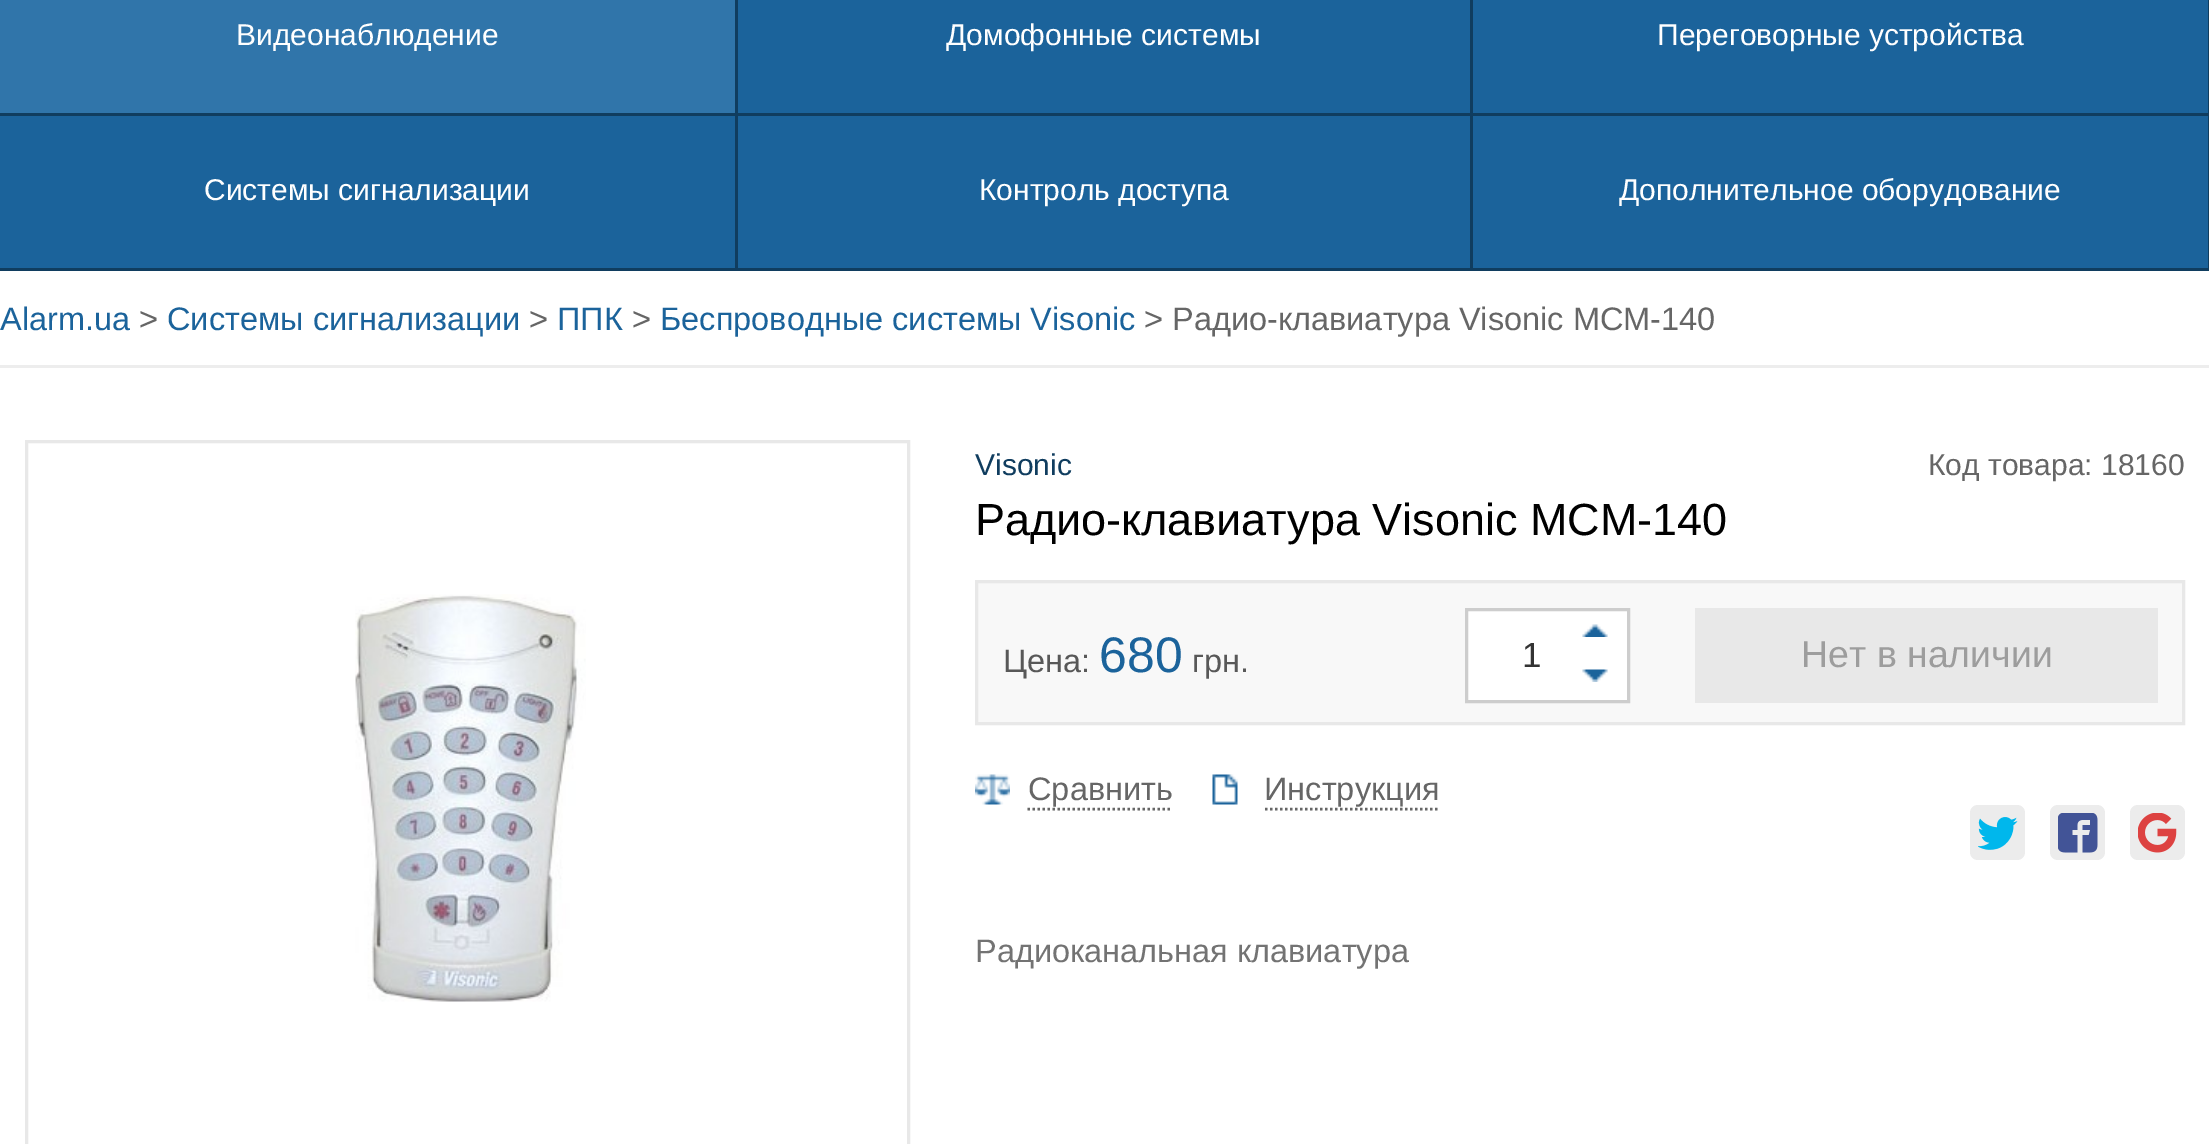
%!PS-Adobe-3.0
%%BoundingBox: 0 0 2209 1144
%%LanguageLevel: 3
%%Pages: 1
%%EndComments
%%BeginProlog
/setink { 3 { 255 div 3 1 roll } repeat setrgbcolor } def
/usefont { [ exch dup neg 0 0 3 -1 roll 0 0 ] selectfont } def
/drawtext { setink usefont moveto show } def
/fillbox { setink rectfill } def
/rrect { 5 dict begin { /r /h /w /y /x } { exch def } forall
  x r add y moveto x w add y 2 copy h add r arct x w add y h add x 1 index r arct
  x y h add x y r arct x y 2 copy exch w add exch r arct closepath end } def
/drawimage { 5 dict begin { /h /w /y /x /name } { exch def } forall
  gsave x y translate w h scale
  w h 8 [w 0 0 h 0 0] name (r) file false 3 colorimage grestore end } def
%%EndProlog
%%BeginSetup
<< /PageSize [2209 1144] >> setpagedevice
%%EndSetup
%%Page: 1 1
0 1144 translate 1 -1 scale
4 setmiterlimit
0 0 2209 1144 255 255 255 fillbox
0 0 2208 268 27 99 155 fillbox
0 0 735 113 48 117 170 fillbox
735 0 3 115 16 61 95 fillbox
0 113 738 3 16 61 95 fillbox
(Видеонаблюдение) 236 45 /LiberationSans-Regular 30 255 255 255 drawtext
1470 0 3 115 16 61 95 fillbox
738 113 735 3 16 61 95 fillbox
(Домофонные системы) 946 45 /LiberationSans-Regular 30 255 255 255 drawtext
2208 0 1 115 16 61 95 fillbox
1473 113 736 3 16 61 95 fillbox
(Переговорные устройства) 1657 45 /LiberationSans-Regular 30 255 255 255 drawtext
735 115 3 155 16 61 95 fillbox
0 268 738 3 16 61 95 fillbox
(Системы сигнализации) 204 200 /LiberationSans-Regular 30 255 255 255 drawtext
1470 115 3 155 16 61 95 fillbox
738 268 735 3 16 61 95 fillbox
(Контроль доступа) 979 200 /LiberationSans-Regular 30 255 255 255 drawtext
2208 115 1 155 16 61 95 fillbox
1473 268 736 3 16 61 95 fillbox
(Дополнительное оборудование) 1619 200 /LiberationSans-Regular 30 255 255 255 drawtext
0 365 2209 3 237 237 237 fillbox
(Alarm.ua) 0 330 /LiberationSans-Regular 32.5 27 99 155 drawtext
(>) 139 330 /LiberationSans-Regular 32.5 102 102 102 drawtext
(Системы сигнализации) 167 330 /LiberationSans-Regular 32.5 27 99 155 drawtext
(>) 529 330 /LiberationSans-Regular 32.5 102 102 102 drawtext
(ППК) 557 330 /LiberationSans-Regular 32.5 27 99 155 drawtext
(>) 632 330 /LiberationSans-Regular 32.5 102 102 102 drawtext
(Беспроводные системы Visonic) 660 330 /LiberationSans-Regular 32.5 27 99 155 drawtext
(> Радио-клавиатура Visonic MCM-140) 1144 330 /LiberationSans-Regular 32.5 102 102 102 drawtext
232 232 232 setink
3 setlinewidth
26.5 441.5 882 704 rectstroke
(assets/img1.rgb) 355 594 231 408 drawimage
(Visonic) 975 475 /LiberationSans-Regular 30 16 61 95 drawtext
(Код товара: 18160) 1928 475 /LiberationSans-Regular 30 102 102 102 drawtext
(Радио-клавиатура Visonic MCM-140) 975 535 /LiberationSans-Regular 45 0 0 0 drawtext
248 248 248 setink
976.5 581.5 moveto 2183.5 581.5 lineto 2183.5 723.5 lineto 976.5 723.5 lineto closepath gsave fill grestore
232 232 232 setink
stroke
(Цена:) 1003 672 /LiberationSans-Regular 32.5 88 88 88 drawtext
(680) 1099 672 /LiberationSans-Regular 50 27 99 155 drawtext
(грн.) 1192 672 /LiberationSans-Regular 32.5 88 88 88 drawtext
255 255 255 setink
1466.5 609.5 moveto 1628.5 609.5 lineto 1628.5 701.5 lineto 1466.5 701.5 lineto closepath gsave fill grestore
205 205 205 setink
stroke
(assets/img2.rgb) 1582 624 26 13 drawimage
(1) 1522 667 /LiberationSans-Regular 35 51 51 51 drawtext
(assets/img3.rgb) 1582 669 26 13 drawimage
1695 608 463 95 232 232 232 fillbox
(Нет в наличии) 1801 667 /LiberationSans-Regular 37.5 157 157 157 drawtext
(assets/img4.rgb) 975 774 35 31 drawimage
(Сравнить) 1028 800 /LiberationSans-Regular 32.5 102 102 102 drawtext
2.5 setlinewidth
[2.5 2.5] 0 setdash
1027.5 809 moveto 1172.5 809 lineto stroke
(assets/img5.rgb) 1212 774 26 31 drawimage
(Инструкция) 1264 800 /LiberationSans-Regular 32.5 102 102 102 drawtext
1265 809 moveto 1440 809 lineto stroke
236 236 236 setink
1970 805 55 55 8 rrect fill
(assets/img6.rgb) 1978 817 40 33 drawimage
2050 805 55 55 8 rrect fill
(assets/img7.rgb) 2058 813 40 40 drawimage
2130 805 55 55 8 rrect fill
(assets/img8.rgb) 2138 813 39 40 drawimage
(Радиоканальная клавиатура) 975 962 /LiberationSans-Regular 32.5 115 115 115 drawtext
showpage
%%EOF
